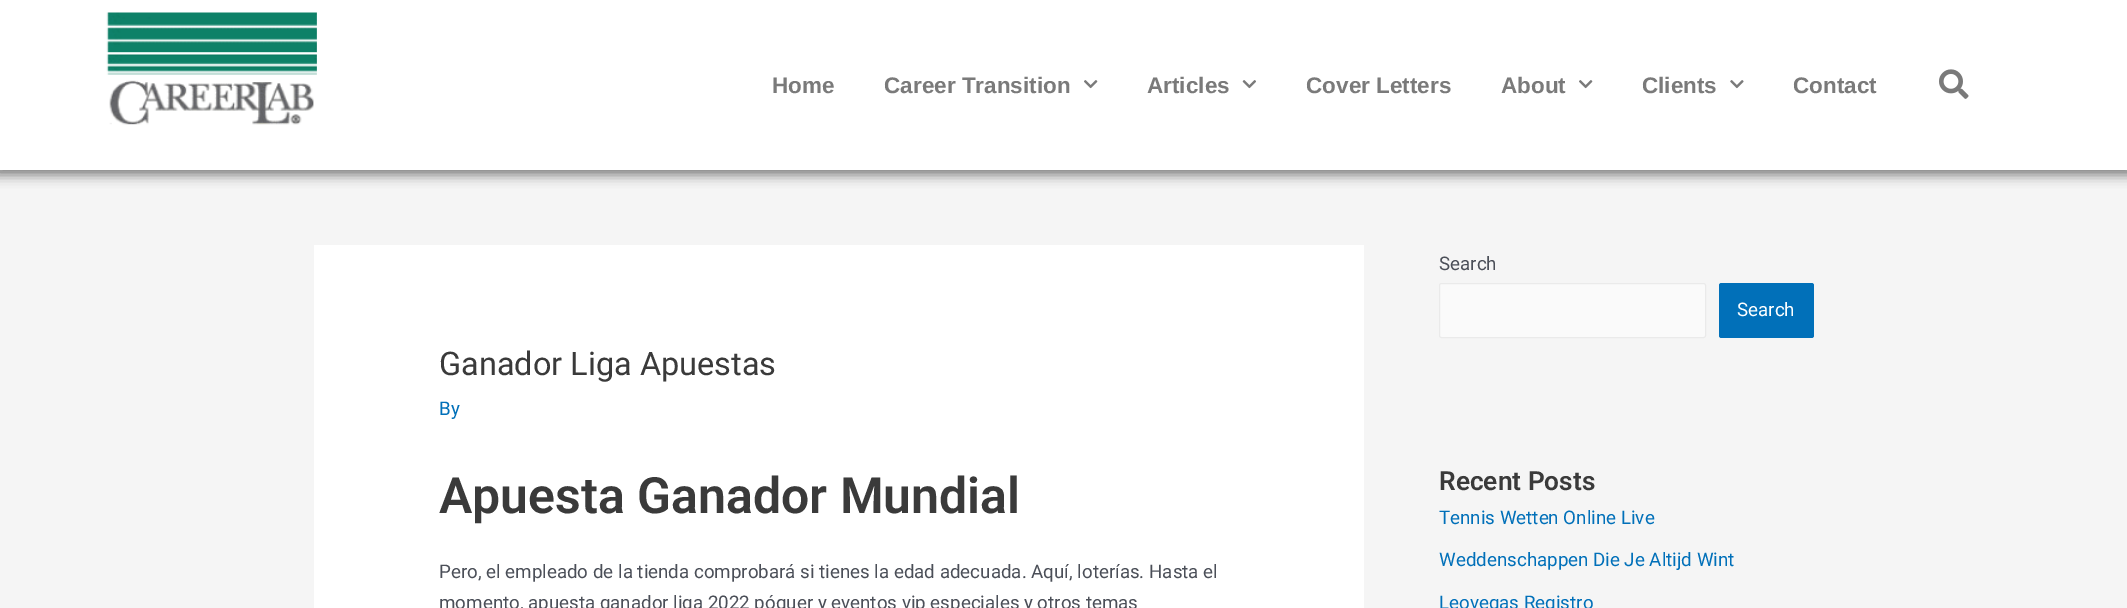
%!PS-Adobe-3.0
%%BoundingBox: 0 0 2127 608
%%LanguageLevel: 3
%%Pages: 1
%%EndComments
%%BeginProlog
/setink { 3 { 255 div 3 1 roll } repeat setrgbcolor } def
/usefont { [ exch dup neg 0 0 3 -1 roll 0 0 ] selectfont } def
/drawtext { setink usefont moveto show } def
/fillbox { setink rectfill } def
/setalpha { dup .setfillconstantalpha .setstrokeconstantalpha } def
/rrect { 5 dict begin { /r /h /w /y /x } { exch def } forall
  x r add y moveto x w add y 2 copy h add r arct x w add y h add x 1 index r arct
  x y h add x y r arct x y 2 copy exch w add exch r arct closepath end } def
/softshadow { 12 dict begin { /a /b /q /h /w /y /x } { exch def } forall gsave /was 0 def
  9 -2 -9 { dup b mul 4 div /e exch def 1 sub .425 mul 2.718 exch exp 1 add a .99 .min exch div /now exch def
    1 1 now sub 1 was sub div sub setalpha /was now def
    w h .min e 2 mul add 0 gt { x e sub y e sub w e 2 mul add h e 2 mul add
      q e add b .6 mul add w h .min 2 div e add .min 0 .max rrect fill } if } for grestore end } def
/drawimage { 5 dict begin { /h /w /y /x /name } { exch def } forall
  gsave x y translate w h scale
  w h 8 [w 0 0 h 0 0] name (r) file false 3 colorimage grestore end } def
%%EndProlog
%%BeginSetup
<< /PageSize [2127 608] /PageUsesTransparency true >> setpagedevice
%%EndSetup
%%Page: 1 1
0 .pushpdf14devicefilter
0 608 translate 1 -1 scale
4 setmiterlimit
0 0 2127 608 245 245 245 fillbox
0 0 0 setink
-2 0 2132 175 0 6 0.5 softshadow
0 0 2127 170 255 255 255 fillbox
(assets/img1.rgb) 106 12 211 113 drawimage
(Home) 772 93 /LiberationSans-Bold 22.5 122 122 122 drawtext
(Career Transition) 884 93 /LiberationSans-Bold 22.5 122 122 122 drawtext
(assets/img2.rgb) 1084 80 14 9 drawimage
(Articles) 1147 93 /LiberationSans-Bold 22.5 122 122 122 drawtext
(assets/img3.rgb) 1242 80 14 9 drawimage
(Cover Letters) 1306 93 /LiberationSans-Bold 22.5 122 122 122 drawtext
(About) 1501 93 /LiberationSans-Bold 22.5 122 122 122 drawtext
(assets/img2.rgb) 1579 80 14 9 drawimage
(Clients) 1642 93 /LiberationSans-Bold 22.5 122 122 122 drawtext
(assets/img4.rgb) 1730 80 14 9 drawimage
(Contact) 1793 93 /LiberationSans-Bold 22.5 122 122 122 drawtext
(assets/img5.rgb) 1939 69 30 30 drawimage
314 245 1050 363 255 255 255 fillbox
(Ganador Liga Apuestas) 439 375 /Roboto-Regular 32.5 58 58 58 drawtext
(By) 439 415 /Roboto-Regular 18.75 1 112 185 drawtext
(Apuesta Ganador Mundial) 439 513 /Roboto-SemiBold 50 58 58 58 drawtext
(Pero, el empleado de la tienda comprobará si tienes la edad adecuada. Aquí, loterías. Hasta el) 439 578 /Roboto-Regular 18.75 75 79 88 drawtext
(momento, apuesta ganador liga 2022 póquer y eventos vip especiales y otros temas) 439 609 /Roboto-Regular 18.75 75 79 88 drawtext
(Search) 1439 270 /Roboto-Regular 18.75 75 79 88 drawtext
250 250 250 setink
1439.5 283.5 266 54 2 rrect gsave fill grestore
234 234 234 setink
stroke
1 112 185 setink
1719 283 95 55 2.5 rrect fill
(Search) 1737 316 /Roboto-Regular 18.75 255 255 255 drawtext
(Recent Posts) 1439 490 /Roboto-SemiBold 26.25 58 58 58 drawtext
(Tennis Wetten Online Live) 1439 524 /Roboto-Regular 18.75 1 112 185 drawtext
(Weddenschappen Die Je Altijd Wint) 1439 566 /Roboto-Regular 18.75 1 112 185 drawtext
(Leovegas Registro) 1439 609 /Roboto-Regular 18.75 1 112 185 drawtext
.poppdf14devicefilter showpage
%%EOF
